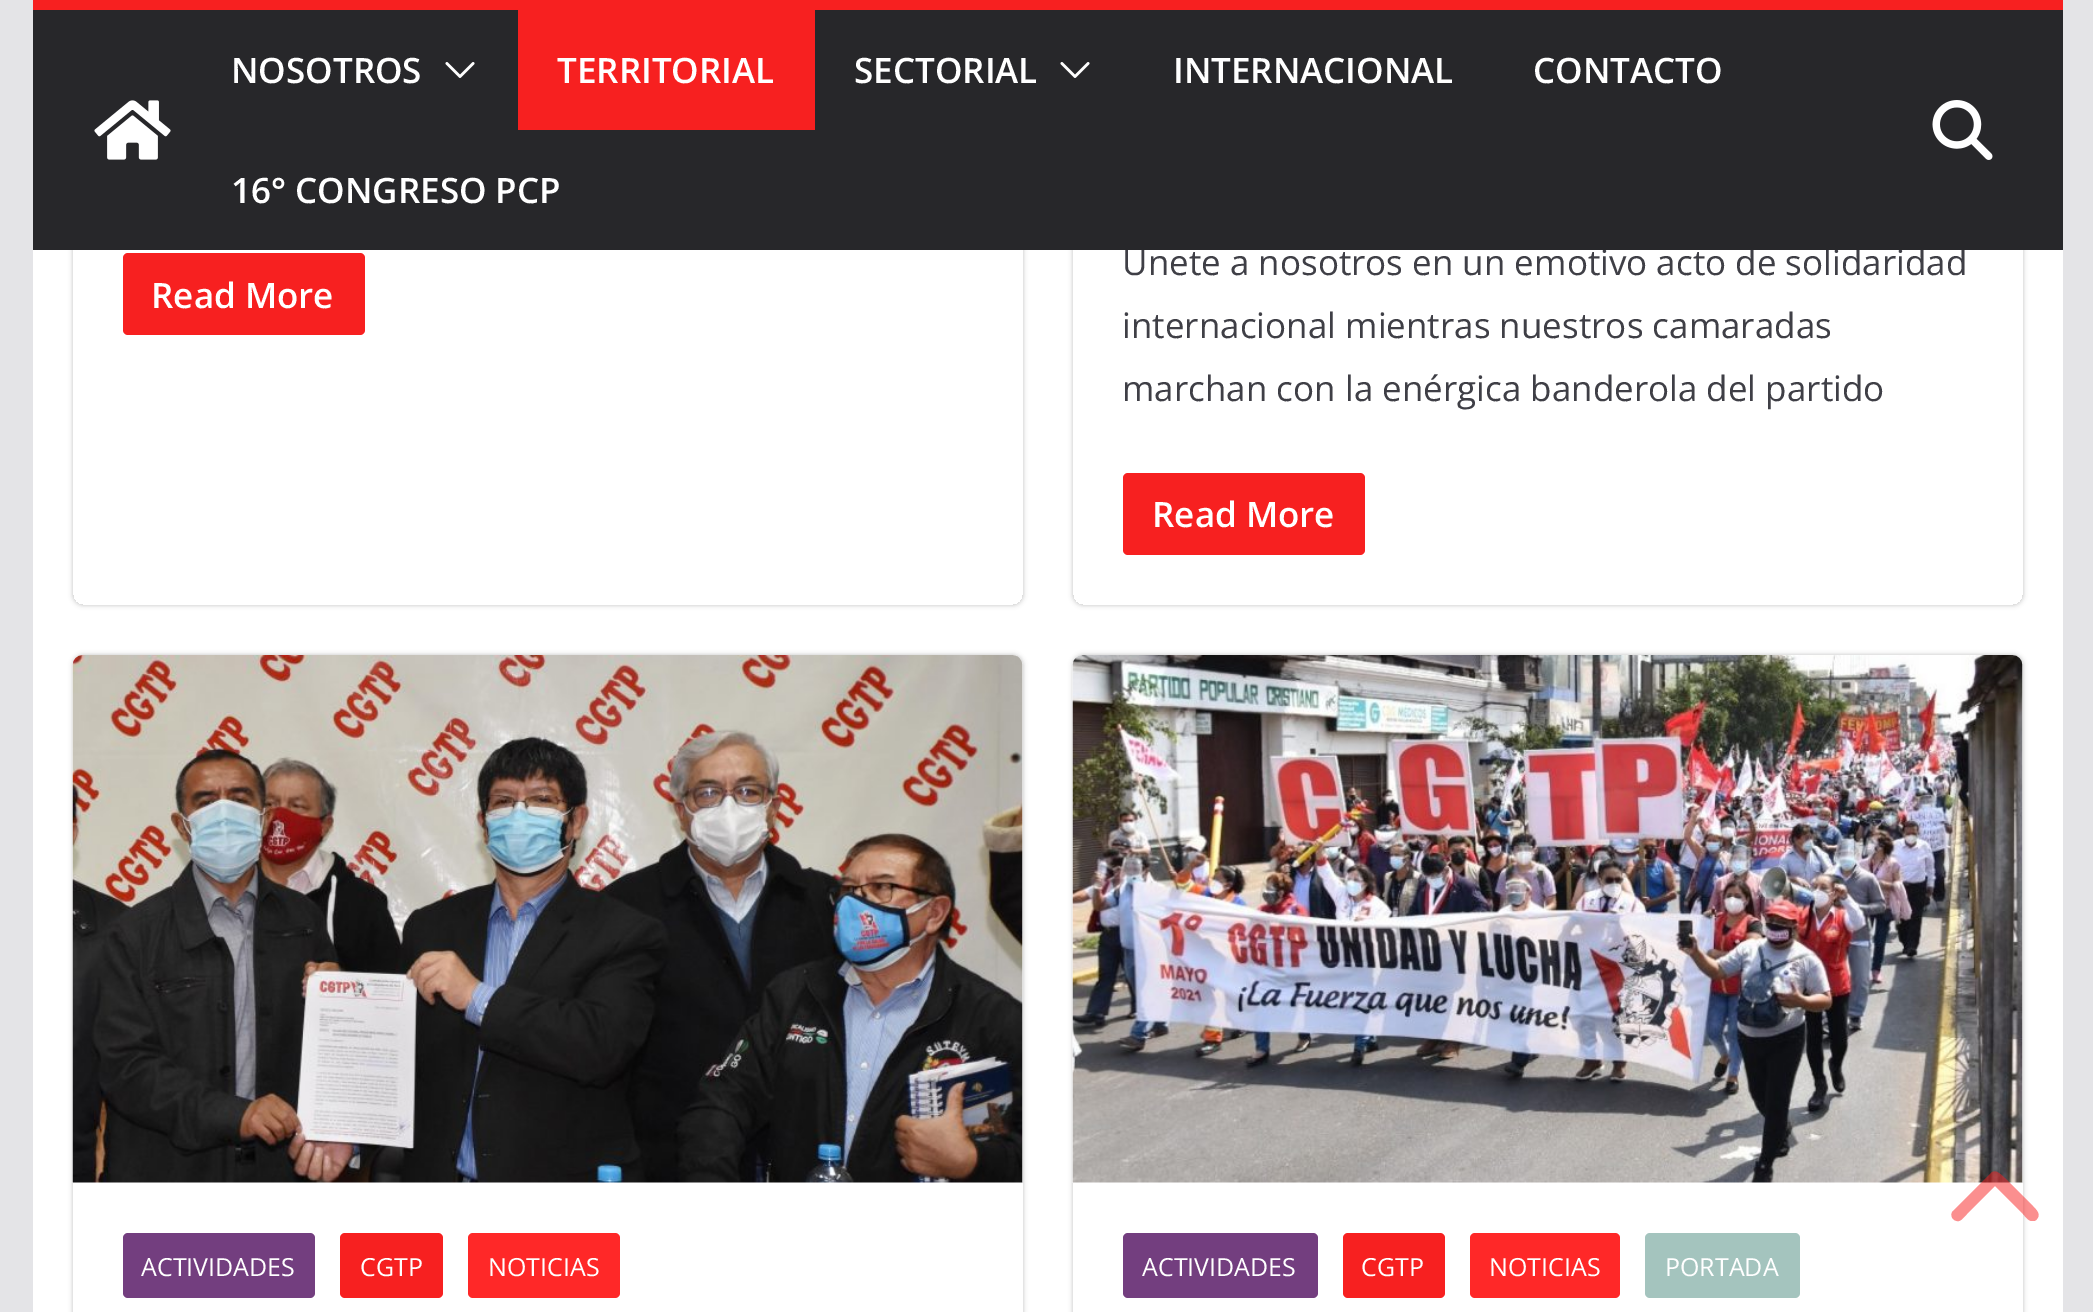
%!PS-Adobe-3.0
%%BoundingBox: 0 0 2093 1312
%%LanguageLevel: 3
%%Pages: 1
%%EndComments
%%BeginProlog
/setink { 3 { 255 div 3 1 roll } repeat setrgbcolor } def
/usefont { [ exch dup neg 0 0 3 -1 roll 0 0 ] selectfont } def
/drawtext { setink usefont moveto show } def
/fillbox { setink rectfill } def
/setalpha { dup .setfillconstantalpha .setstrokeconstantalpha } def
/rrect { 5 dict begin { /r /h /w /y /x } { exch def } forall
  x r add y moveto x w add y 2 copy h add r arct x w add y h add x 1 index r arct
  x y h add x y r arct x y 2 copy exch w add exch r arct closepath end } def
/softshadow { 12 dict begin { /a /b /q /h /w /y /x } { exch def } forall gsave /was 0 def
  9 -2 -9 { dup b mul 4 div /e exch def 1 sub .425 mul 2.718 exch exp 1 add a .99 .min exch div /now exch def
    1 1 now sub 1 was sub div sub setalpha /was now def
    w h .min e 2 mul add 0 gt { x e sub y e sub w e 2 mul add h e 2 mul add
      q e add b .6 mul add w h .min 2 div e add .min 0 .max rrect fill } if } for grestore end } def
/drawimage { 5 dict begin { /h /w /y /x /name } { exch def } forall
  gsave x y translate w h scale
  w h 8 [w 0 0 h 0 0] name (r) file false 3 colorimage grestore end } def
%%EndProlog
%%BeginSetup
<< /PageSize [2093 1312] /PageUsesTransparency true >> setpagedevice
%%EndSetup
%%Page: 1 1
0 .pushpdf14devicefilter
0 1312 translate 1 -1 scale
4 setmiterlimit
0 0 2093 1312 228 228 231 fillbox
33 250 2030 1062 255 255 255 fillbox
gsave
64 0 moveto 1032 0 lineto 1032 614 lineto 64 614 lineto closepath 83 -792 moveto 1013 -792 lineto 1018.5 -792 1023 -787.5 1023 -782 curveto 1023 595 lineto 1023 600.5 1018.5 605 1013 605 curveto 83 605 lineto 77.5 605 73 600.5 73 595 curveto 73 -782 lineto 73 -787.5 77.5 -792 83 -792 curveto closepath eoclip newpath
0 0 0 setink
73 -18 950 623 10 2.5 0.24 softshadow
grestore
gsave
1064 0 moveto 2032 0 lineto 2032 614 lineto 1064 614 lineto closepath 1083 -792 moveto 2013 -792 lineto 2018.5 -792 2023 -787.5 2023 -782 curveto 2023 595 lineto 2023 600.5 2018.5 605 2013 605 curveto 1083 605 lineto 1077.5 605 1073 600.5 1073 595 curveto 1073 -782 lineto 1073 -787.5 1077.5 -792 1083 -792 curveto closepath eoclip newpath
0 0 0 setink
1073 -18 950 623 10 2.5 0.24 softshadow
grestore
(Únete a nosotros en un emotivo acto de solidaridad) 1122 275 /OpenSans-Regular 35 63 63 70 drawtext
33 10 2030 240 39 39 42 fillbox
33 0 2030 10 247 32 32 fillbox
(assets/img1.rgb) 94 100 77 60 drawimage
(NOSOTROS) 231 83 /OpenSans-SemiBold 35 255 255 255 drawtext
(assets/img2.rgb) 445 62 30 16 drawimage
518 10 297 120 247 32 32 fillbox
(TERRITORIAL) 557 83 /OpenSans-SemiBold 35 255 255 255 drawtext
(SECTORIAL) 854 83 /OpenSans-SemiBold 35 255 255 255 drawtext
(assets/img2.rgb) 1060 62 30 16 drawimage
(INTERNACIONAL) 1173 83 /OpenSans-SemiBold 35 255 255 255 drawtext
(CONTACTO) 1533 83 /OpenSans-SemiBold 35 255 255 255 drawtext
(16° CONGRESO PCP) 231 203 /OpenSans-SemiBold 35 255 255 255 drawtext
(assets/img3.rgb) 1932 100 61 60 drawimage
247 32 32 setink
123 253 242 82 5 rrect fill
(Read More) 151 308 /OpenSans-SemiBold 35 255 255 255 drawtext
(internacional mientras nuestros camaradas) 1122 338 /OpenSans-Regular 35 63 63 70 drawtext
(marchan con la enérgica banderola del partido) 1122 401 /OpenSans-Regular 35 63 63 70 drawtext
247 32 32 setink
1123 473 242 82 5 rrect fill
(Read More) 1152 527 /OpenSans-SemiBold 35 255 255 255 drawtext
gsave
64 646 moveto 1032 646 lineto 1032 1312 lineto 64 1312 lineto closepath 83 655 moveto 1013 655 lineto 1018.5 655 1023 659.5 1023 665 curveto 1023 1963 lineto 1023 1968.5 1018.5 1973 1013 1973 curveto 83 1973 lineto 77.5 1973 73 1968.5 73 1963 curveto 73 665 lineto 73 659.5 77.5 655 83 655 curveto closepath eoclip newpath
0 0 0 setink
73 655 950 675 10 2.5 0.24 softshadow
grestore
(assets/img4.rgb) 72 655 951 528 drawimage
115 62 127 setink
123 1233 192 65 5 rrect fill
(ACTIVIDADES) 141 1276 /OpenSans-Regular 25 255 255 255 drawtext
247 32 32 setink
340 1233 103 65 5 rrect fill
(CGTP) 360 1276 /OpenSans-Regular 25 255 255 255 drawtext
255 40 40 setink
468 1233 152 65 5 rrect fill
(NOTICIAS) 488 1276 /OpenSans-Regular 25 255 255 255 drawtext
gsave
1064 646 moveto 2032 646 lineto 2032 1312 lineto 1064 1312 lineto closepath 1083 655 moveto 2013 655 lineto 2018.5 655 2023 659.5 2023 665 curveto 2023 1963 lineto 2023 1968.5 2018.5 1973 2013 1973 curveto 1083 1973 lineto 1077.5 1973 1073 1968.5 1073 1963 curveto 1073 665 lineto 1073 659.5 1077.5 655 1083 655 curveto closepath eoclip newpath
0 0 0 setink
1073 655 950 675 10 2.5 0.24 softshadow
grestore
(assets/img5.rgb) 1072 655 951 528 drawimage
115 62 127 setink
1123 1233 195 65 5 rrect fill
(ACTIVIDADES) 1142 1276 /OpenSans-Regular 25 255 255 255 drawtext
247 32 32 setink
1343 1233 102 65 5 rrect fill
(CGTP) 1361 1276 /OpenSans-Regular 25 255 255 255 drawtext
255 40 40 setink
1470 1233 150 65 5 rrect fill
(NOTICIAS) 1489 1276 /OpenSans-Regular 25 255 255 255 drawtext
164 196 190 setink
1645 1233 155 65 5 rrect fill
(PORTADA) 1665 1276 /OpenSans-Regular 25 255 255 255 drawtext
0.5 setalpha
247 32 32 setink
1991 1173 moveto 1996 1168 2002 1176 2006 1179 curveto 2031 1204 lineto 2034 1208 2042 1213 2037 1219 curveto 2036 1221 2034 1221 2032 1221 curveto 2028 1221 2025 1216 2023 1214 curveto 1995 1186 lineto 1967 1214 lineto 1965 1216 1962 1220 1959 1221 curveto 1953 1222 1949 1215 1953 1211 curveto closepath fill
.poppdf14devicefilter showpage
%%EOF
